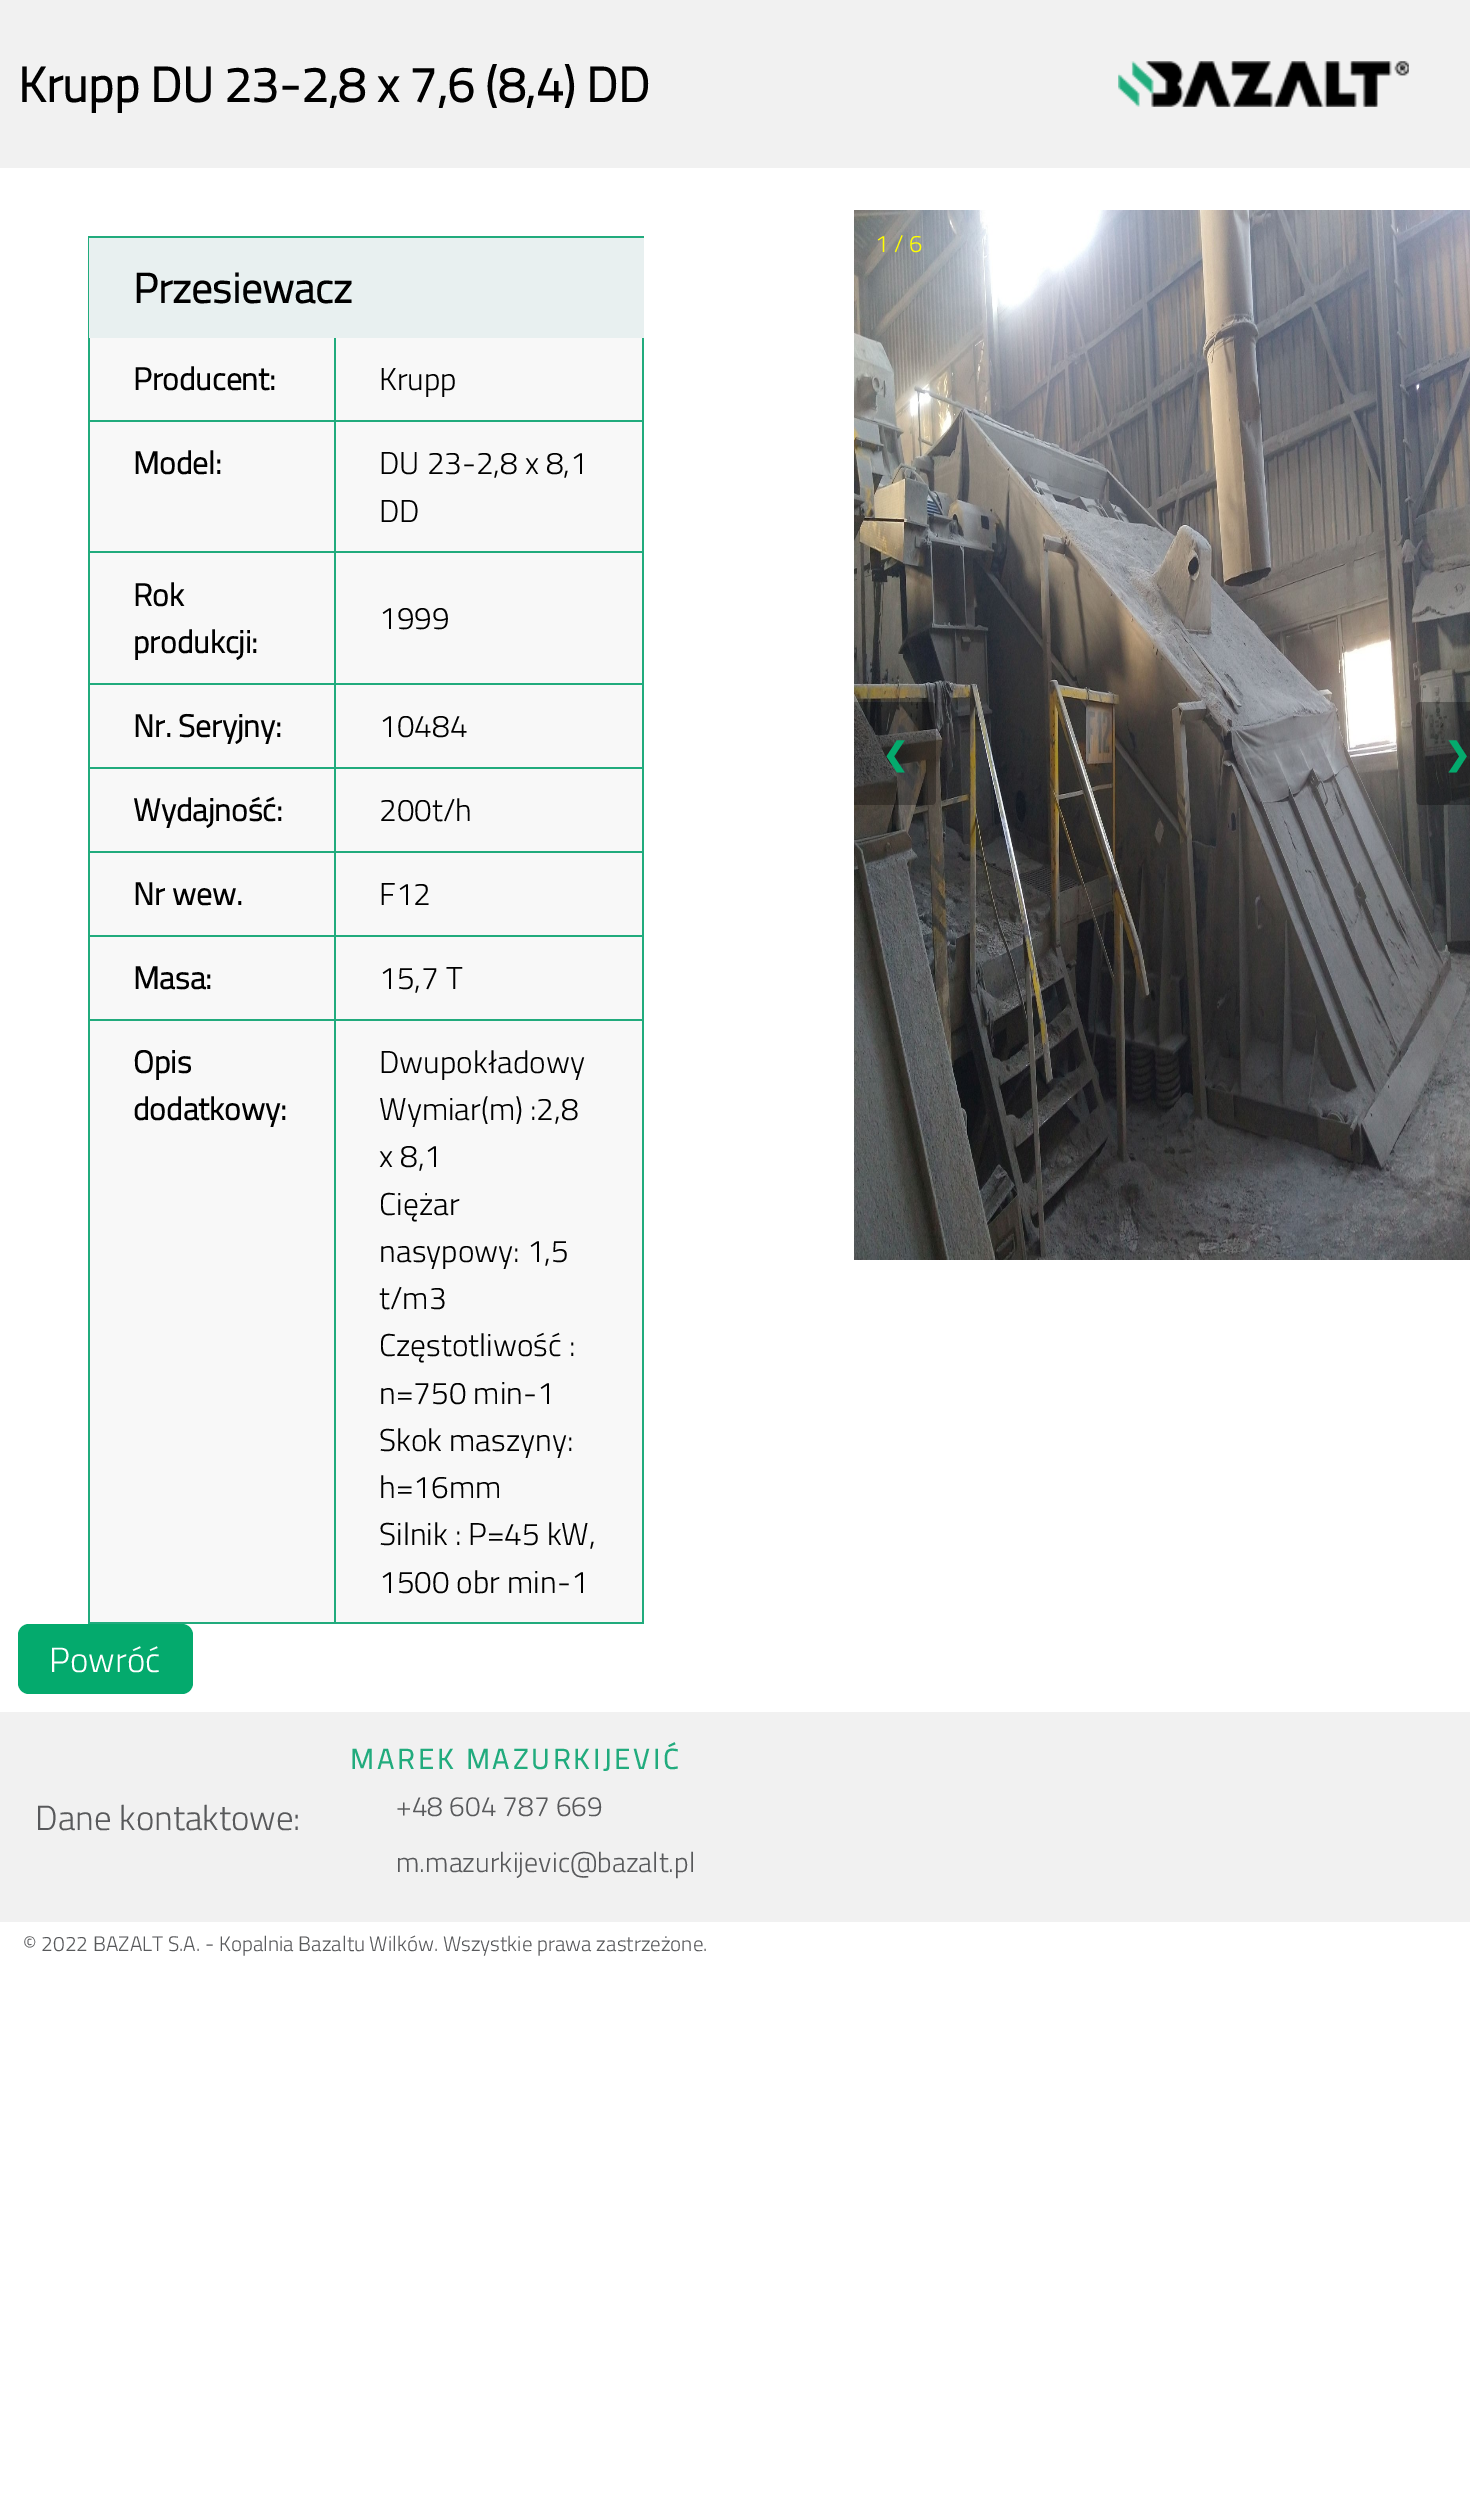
%!PS-Adobe-3.0
%%BoundingBox: 0 0 1470 2518
%%LanguageLevel: 3
%%Pages: 1
%%EndComments
%%BeginProlog
/setink { 3 { 255 div 3 1 roll } repeat setrgbcolor } def
/usefont { [ exch dup neg 0 0 3 -1 roll 0 0 ] selectfont } def
/drawtext { setink usefont moveto show } def
/fillbox { setink rectfill } def
/setalpha { dup .setfillconstantalpha .setstrokeconstantalpha } def
/rrect { 5 dict begin { /r /h /w /y /x } { exch def } forall
  x r add y moveto x w add y 2 copy h add r arct x w add y h add x 1 index r arct
  x y h add x y r arct x y 2 copy exch w add exch r arct closepath end } def
/drawimage { 5 dict begin { /h /w /y /x /name } { exch def } forall
  gsave x y translate w h scale
  w h 8 [w 0 0 h 0 0] name (r) file false 3 colorimage grestore end } def
%%EndProlog
%%BeginSetup
<< /PageSize [1470 2518] /PageUsesTransparency true >> setpagedevice
%%EndSetup
%%Page: 1 1
0 .pushpdf14devicefilter
0 2518 translate 1 -1 scale
4 setmiterlimit
0 0 1470 2518 255 255 255 fillbox
0 0 1470 168 241 241 241 fillbox
(Krupp DU 23-2,8 x 7,6 \(8,4\) DD) 18 102 /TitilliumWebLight-Bold 49 0 0 0 drawtext
(assets/img1.rgb) 1118 61 291 46 drawimage
90 338 552 1284 248 248 248 fillbox
88 236 556 2 33 171 125 fillbox
334 420 310 2 33 171 125 fillbox
334 551 310 2 33 171 125 fillbox
334 683 310 2 33 171 125 fillbox
334 767 310 2 33 171 125 fillbox
334 851 310 2 33 171 125 fillbox
334 935 310 2 33 171 125 fillbox
334 1019 310 2 33 171 125 fillbox
642 1019 2 605 33 171 125 fillbox
334 1622 310 2 33 171 125 fillbox
334 1019 2 605 33 171 125 fillbox
88 1019 248 2 33 171 125 fillbox
334 935 2 85 33 171 125 fillbox
88 935 248 2 33 171 125 fillbox
334 851 2 85 33 171 125 fillbox
88 851 248 2 33 171 125 fillbox
334 767 2 85 33 171 125 fillbox
88 767 248 2 33 171 125 fillbox
334 683 2 85 33 171 125 fillbox
88 683 248 2 33 171 125 fillbox
334 551 2 133 33 171 125 fillbox
88 551 248 2 33 171 125 fillbox
334 420 2 133 33 171 125 fillbox
88 420 248 2 33 171 125 fillbox
88 1622 248 2 33 171 125 fillbox
88 1019 2 605 33 171 125 fillbox
88 935 2 85 33 171 125 fillbox
88 851 2 85 33 171 125 fillbox
88 767 2 85 33 171 125 fillbox
88 683 2 85 33 171 125 fillbox
88 551 2 133 33 171 125 fillbox
88 336 2 217 33 171 125 fillbox
88 236 2 102 33 171 125 fillbox
334 336 2 86 33 171 125 fillbox
642 935 2 85 33 171 125 fillbox
642 851 2 85 33 171 125 fillbox
642 767 2 85 33 171 125 fillbox
642 683 2 85 33 171 125 fillbox
642 551 2 133 33 171 125 fillbox
642 336 2 217 33 171 125 fillbox
89 238 555 100 232 240 240 fillbox
(Przesiewacz) 133 303 /TitilliumWebLight-Bold 42 0 0 0 drawtext
(Producent:) 133 390 /TitilliumWebLight-Bold 31.5 0 0 0 drawtext
(Krupp) 379 390 /TitilliumWebLight-Light 31.5 0 0 0 drawtext
(Model:) 133 474 /TitilliumWebLight-Bold 31.5 0 0 0 drawtext
(DU 23-2,8 x 8,1) 379 474 /TitilliumWebLight-Light 31.5 0 0 0 drawtext
(DD) 379 522 /TitilliumWebLight-Light 31.5 0 0 0 drawtext
(Rok) 133 606 /TitilliumWebLight-Bold 31.5 0 0 0 drawtext
(produkcji:) 133 653 /TitilliumWebLight-Bold 31.5 0 0 0 drawtext
(1999) 379 629 /TitilliumWebLight-Light 31.5 0 0 0 drawtext
(Nr. Seryjny:) 133 737 /TitilliumWebLight-Bold 31.5 0 0 0 drawtext
(10484) 379 737 /TitilliumWebLight-Light 31.5 0 0 0 drawtext
(Wydajność:) 133 821 /TitilliumWebLight-Bold 31.5 0 0 0 drawtext
(200t/h) 379 821 /TitilliumWebLight-Light 31.5 0 0 0 drawtext
(Nr wew.) 133 905 /TitilliumWebLight-Bold 31.5 0 0 0 drawtext
(F12) 379 905 /TitilliumWebLight-Light 31.5 0 0 0 drawtext
(Masa:) 133 989 /TitilliumWebLight-Bold 31.5 0 0 0 drawtext
(15,7 T) 379 989 /TitilliumWebLight-Light 31.5 0 0 0 drawtext
(Opis) 133 1073 /TitilliumWebLight-Bold 31.5 0 0 0 drawtext
(dodatkowy:) 133 1120 /TitilliumWebLight-Bold 31.5 0 0 0 drawtext
(Dwupokładowy) 379 1073 /TitilliumWebLight-Light 31.5 0 0 0 drawtext
(Wymiar\(m\) :2,8) 379 1120 /TitilliumWebLight-Light 31.5 0 0 0 drawtext
(x 8,1) 379 1167 /TitilliumWebLight-Light 31.5 0 0 0 drawtext
(Ciężar) 379 1215 /TitilliumWebLight-Light 31.5 0 0 0 drawtext
(nasypowy: 1,5) 379 1262 /TitilliumWebLight-Light 31.5 0 0 0 drawtext
(t/m3) 379 1309 /TitilliumWebLight-Light 31.5 0 0 0 drawtext
(Częstotliwość :) 379 1356 /TitilliumWebLight-Light 31.5 0 0 0 drawtext
(n=750 min-1) 379 1404 /TitilliumWebLight-Light 31.5 0 0 0 drawtext
(Skok maszyny:) 379 1451 /TitilliumWebLight-Light 31.5 0 0 0 drawtext
(h=16mm) 379 1498 /TitilliumWebLight-Light 31.5 0 0 0 drawtext
(Silnik : P=45 kW,) 379 1545 /TitilliumWebLight-Light 31.5 0 0 0 drawtext
(1500 obr min-1) 379 1593 /TitilliumWebLight-Light 31.5 0 0 0 drawtext
(assets/img2.rgb) 854 210 616 1050 drawimage
(1 / 6) 875 252 /TitilliumWebLight-Light 24 255 255 0 drawtext
0.3 setalpha
0 0 0 setink
854 702 moveto 931 702 lineto 934 702 936 704 936 707 curveto 936 800 lineto 936 803 934 805 931 805 curveto 854 805 lineto closepath fill
1 setalpha
(❮) 882 765 /DejaVuSans-Bold 31.5 4 170 109 drawtext
0.3 setalpha
0 0 0 setink
1421 702 moveto 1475 702 lineto 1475 805 lineto 1421 805 lineto 1418 805 1416 803 1416 800 curveto 1416 707 lineto 1416 704 1418 702 1421 702 curveto closepath fill
1 setalpha
(❯) 1444 765 /DejaVuSans-Bold 31.5 4 170 109 drawtext
18 1624 175 70 11 rrect fill
(Powróć) 49 1672 /TitilliumWebLight-Light 35 255 255 255 drawtext
0 1712 1470 210 241 241 241 fillbox
(Dane kontaktowe:) 35 1830 /TitilliumWebLight-Light 35 88 89 91 drawtext
/TitilliumWebLight-Bold 28 usefont
33 171 125 setink
350 1769 moveto 3.5 0 (MAREK MAZURKIJEVIĆ) ashow
(+48 604 787 669) 396 1816 /TitilliumWebLight-Light 28 88 89 91 drawtext
(m.mazurkijevic@bazalt.pl) 396 1872 /TitilliumWebLight-Light 28 88 89 91 drawtext
(© 2022 BAZALT S.A. - Kopalnia Bazaltu Wilków. Wszystkie prawa zastrzeżone.) 23 1951 /TitilliumWebLight-Light 21 88 89 91 drawtext
.poppdf14devicefilter showpage
%%EOF
